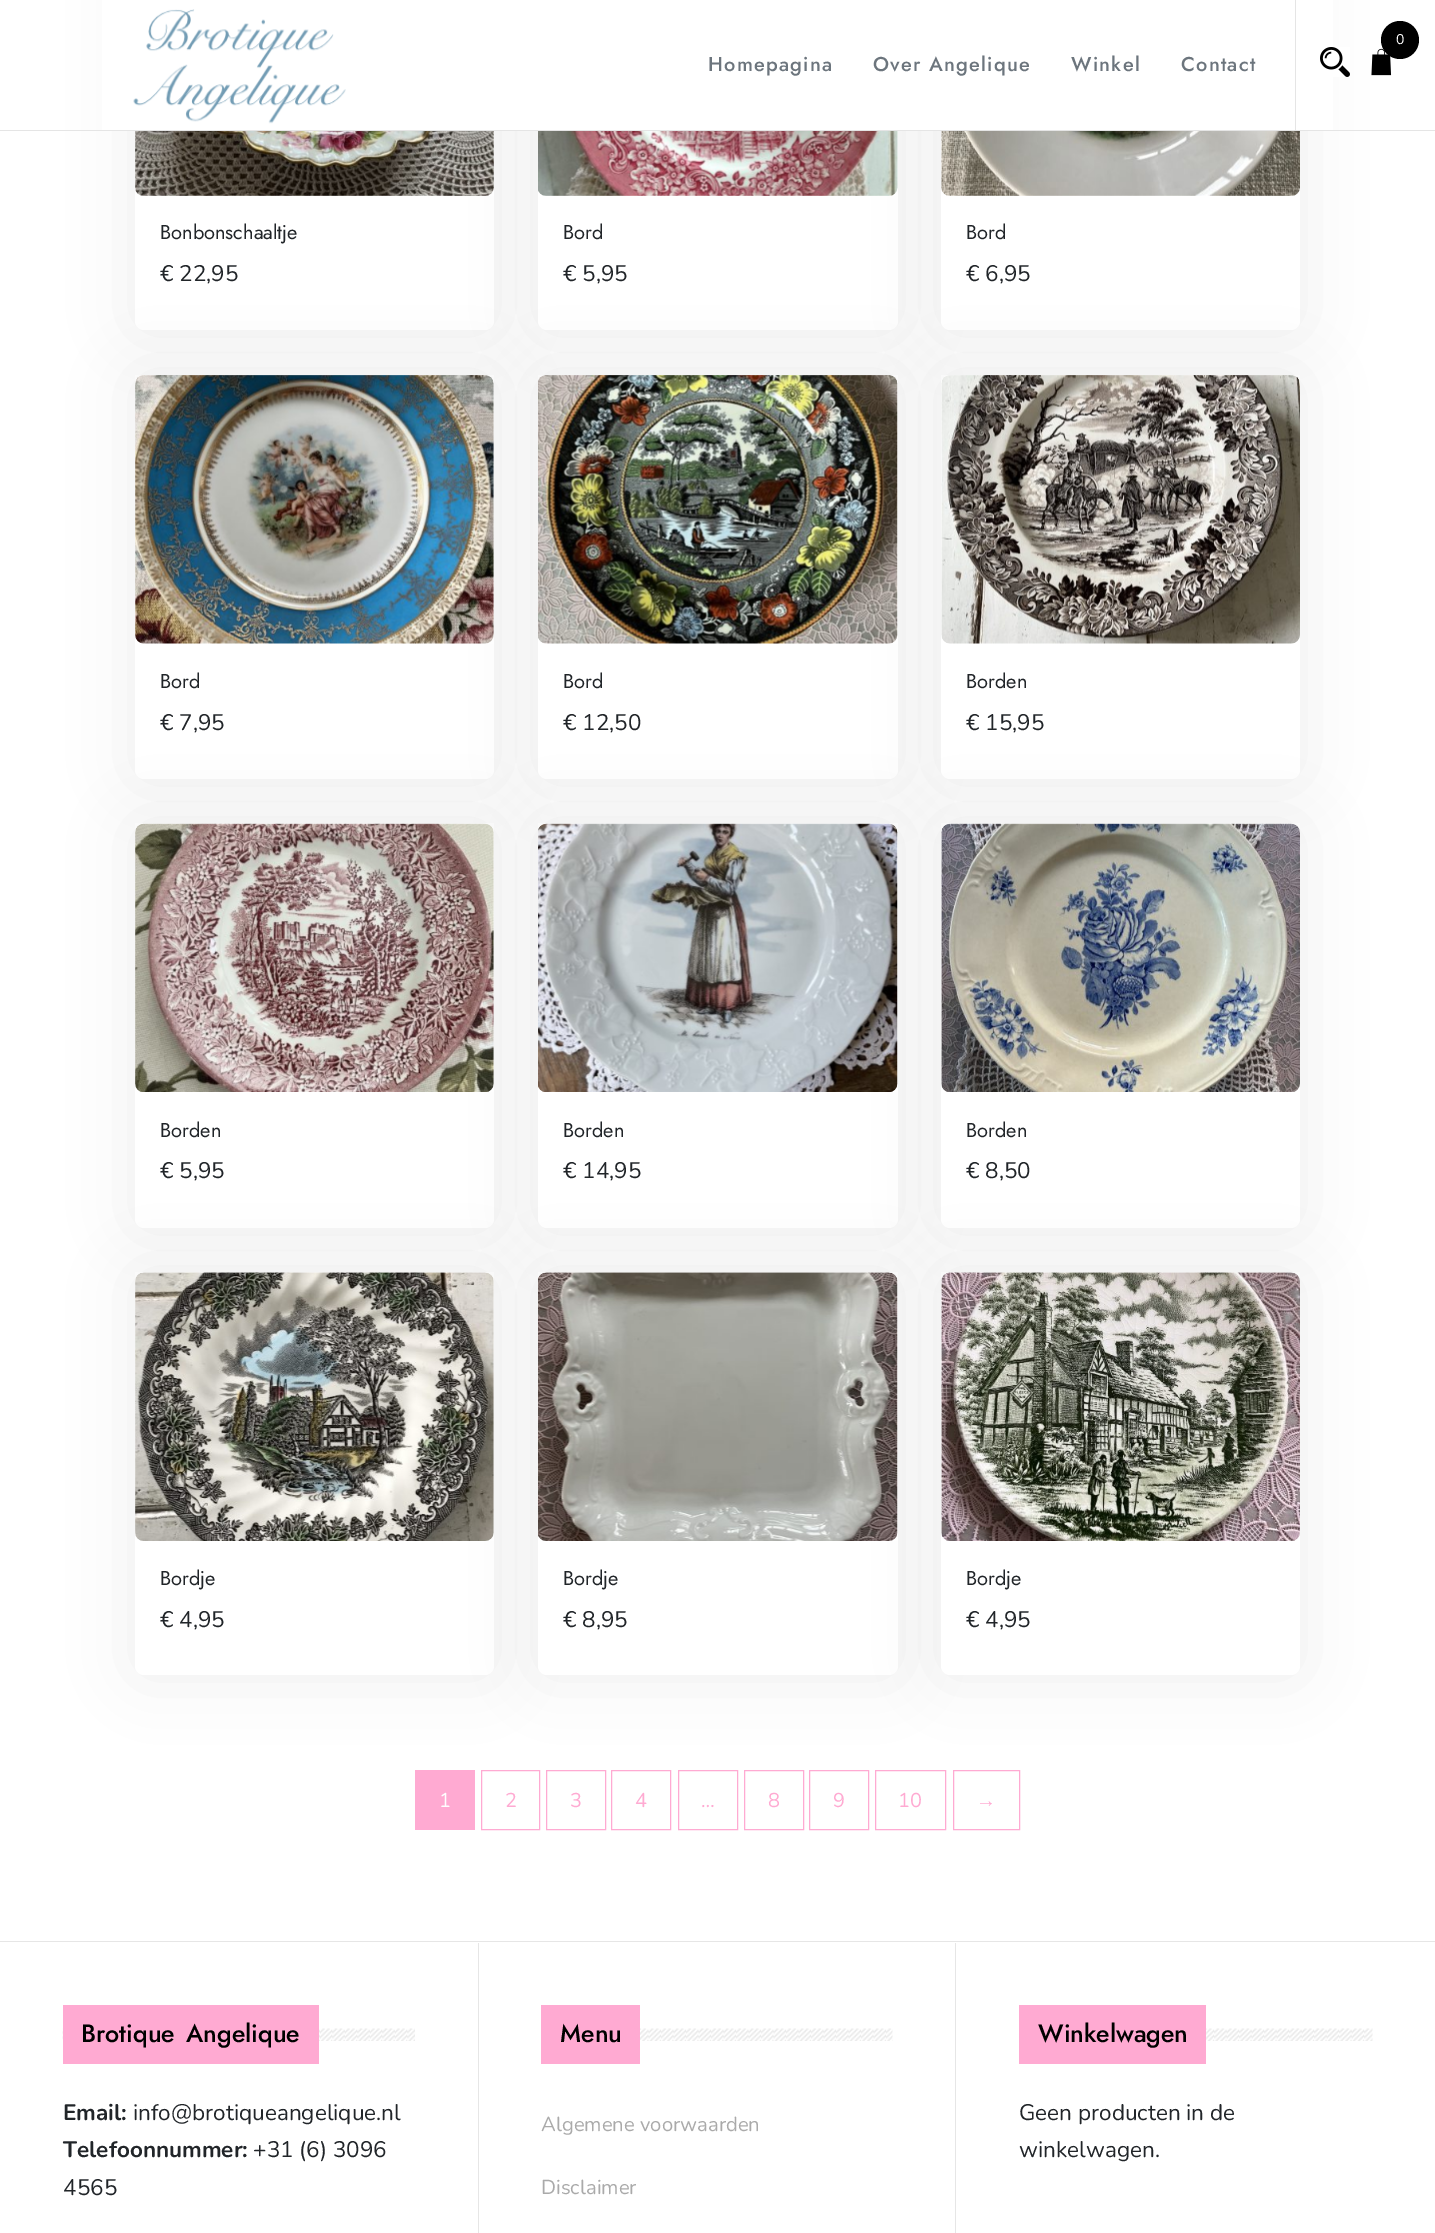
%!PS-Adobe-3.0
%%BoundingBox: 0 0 1435 2233
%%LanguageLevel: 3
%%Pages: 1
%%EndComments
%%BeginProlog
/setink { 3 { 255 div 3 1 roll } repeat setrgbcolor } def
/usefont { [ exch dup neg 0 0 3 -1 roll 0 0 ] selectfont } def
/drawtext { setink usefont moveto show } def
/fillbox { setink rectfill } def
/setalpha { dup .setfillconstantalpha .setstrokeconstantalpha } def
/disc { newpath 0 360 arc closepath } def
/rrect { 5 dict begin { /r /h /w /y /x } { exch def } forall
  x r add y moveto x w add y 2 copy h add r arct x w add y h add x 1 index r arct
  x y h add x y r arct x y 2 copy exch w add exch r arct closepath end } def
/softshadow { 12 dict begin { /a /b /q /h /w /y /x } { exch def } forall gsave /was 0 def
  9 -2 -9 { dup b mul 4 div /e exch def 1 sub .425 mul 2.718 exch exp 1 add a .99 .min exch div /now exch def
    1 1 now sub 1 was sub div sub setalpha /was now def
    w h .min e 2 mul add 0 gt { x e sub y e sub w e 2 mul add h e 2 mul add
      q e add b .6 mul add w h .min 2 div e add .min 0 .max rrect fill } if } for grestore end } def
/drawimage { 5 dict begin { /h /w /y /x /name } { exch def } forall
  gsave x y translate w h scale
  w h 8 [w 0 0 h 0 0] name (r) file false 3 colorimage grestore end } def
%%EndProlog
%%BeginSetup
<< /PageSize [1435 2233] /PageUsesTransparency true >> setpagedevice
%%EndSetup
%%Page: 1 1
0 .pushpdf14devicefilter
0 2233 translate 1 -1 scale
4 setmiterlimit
0 0 1435 2233 255 255 255 fillbox
74 74 74 setink
135 -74 359 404 9 31 0.1 softshadow
255 255 255 setink
135 -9 359 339 9 rrect fill
74 74 74 setink
538 -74 360 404 9 31 0.1 softshadow
255 255 255 setink
538 -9 360 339 9 rrect fill
74 74 74 setink
941 -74 359 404 9 31 0.1 softshadow
255 255 255 setink
941 -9 359 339 9 rrect fill
102 0 1231 130 255 255 255 fillbox
0 130 1435 1 229 229 229 fillbox
(assets/img1.rgb) 133 9 213 115 drawimage
1295 0 1 130 229 229 229 fillbox
(assets/img2.rgb) 1371 48 21 28 drawimage
0 0 0 setink
1400 40 19 disc fill
(0) 1396 44 /Nunito-Regular 14 255 255 255 drawtext
(assets/img3.rgb) 1320 47 30 30 drawimage
/Jost-Medium 20 usefont
108 117 125 setink
708 71 moveto 1.25 0 (Homepagina) ashow
873 71 moveto 1.25 0 (Over Angelique) ashow
1071 71 moveto 1.25 0 (Winkel) ashow
1181 71 moveto 1.25 0 (Contact) ashow
(assets/img4.rgb) 135 131 359 65 drawimage
(Bonbonschaaltje) 160 239 /Jost-Regular 20 33 37 41 drawtext
(€ 22,95) 160 281 /Nunito-Regular 22.5 33 37 41 drawtext
(assets/img5.rgb) 538 131 360 65 drawimage
(Bord) 563 239 /Jost-Regular 20 33 37 41 drawtext
(€ 5,95) 563 281 /Nunito-Regular 22.5 33 37 41 drawtext
(assets/img6.rgb) 941 131 359 65 drawimage
(Bord) 966 239 /Jost-Regular 20 33 37 41 drawtext
(€ 6,95) 966 281 /Nunito-Regular 22.5 33 37 41 drawtext
74 74 74 setink
135 375 359 404 9 31 0.1 softshadow
255 255 255 setink
135 375 359 404 9 rrect fill
74 74 74 setink
538 375 360 404 9 31 0.1 softshadow
(assets/img7.rgb) 135 375 359 269 drawimage
(Bord) 160 688 /Jost-Regular 20 33 37 41 drawtext
(€ 7,95) 160 730 /Nunito-Regular 22.5 33 37 41 drawtext
255 255 255 setink
538 375 360 404 9 rrect fill
74 74 74 setink
941 375 359 404 9 31 0.1 softshadow
(assets/img8.rgb) 538 375 360 269 drawimage
(Bord) 563 688 /Jost-Regular 20 33 37 41 drawtext
(€ 12,50) 563 730 /Nunito-Regular 22.5 33 37 41 drawtext
255 255 255 setink
941 375 359 404 9 rrect fill
(assets/img9.rgb) 941 375 359 269 drawimage
(Borden) 966 688 /Jost-Regular 20 33 37 41 drawtext
(€ 15,95) 966 730 /Nunito-Regular 22.5 33 37 41 drawtext
74 74 74 setink
135 824 359 404 9 31 0.1 softshadow
255 255 255 setink
135 824 359 404 9 rrect fill
74 74 74 setink
538 824 360 404 9 31 0.1 softshadow
(assets/img10.rgb) 135 823 359 269 drawimage
(Borden) 160 1137 /Jost-Regular 20 33 37 41 drawtext
(€ 5,95) 160 1178 /Nunito-Regular 22.5 33 37 41 drawtext
255 255 255 setink
538 824 360 404 9 rrect fill
74 74 74 setink
941 824 359 404 9 31 0.1 softshadow
(assets/img11.rgb) 538 823 360 269 drawimage
(Borden) 563 1137 /Jost-Regular 20 33 37 41 drawtext
(€ 14,95) 563 1178 /Nunito-Regular 22.5 33 37 41 drawtext
255 255 255 setink
941 824 359 404 9 rrect fill
(assets/img12.rgb) 941 823 359 269 drawimage
(Borden) 966 1137 /Jost-Regular 20 33 37 41 drawtext
(€ 8,50) 966 1178 /Nunito-Regular 22.5 33 37 41 drawtext
74 74 74 setink
135 1273 359 402 9 31 0.1 softshadow
255 255 255 setink
135 1273 359 402 9 rrect fill
74 74 74 setink
538 1273 360 402 9 31 0.1 softshadow
(assets/img13.rgb) 135 1272 359 269 drawimage
(Bordje) 160 1585 /Jost-Regular 20 33 37 41 drawtext
(€ 4,95) 160 1627 /Nunito-Regular 22.5 33 37 41 drawtext
255 255 255 setink
538 1273 360 402 9 rrect fill
74 74 74 setink
941 1273 359 402 9 31 0.1 softshadow
(assets/img14.rgb) 538 1272 360 269 drawimage
(Bordje) 563 1585 /Jost-Regular 20 33 37 41 drawtext
(€ 8,95) 563 1627 /Nunito-Regular 22.5 33 37 41 drawtext
255 255 255 setink
941 1273 359 402 9 rrect fill
(assets/img15.rgb) 941 1272 359 269 drawimage
(Bordje) 966 1585 /Jost-Regular 20 33 37 41 drawtext
(€ 4,95) 966 1627 /Nunito-Regular 22.5 33 37 41 drawtext
415 1770 60 60 255 170 210 fillbox
(1) 439 1807 /Nunito-Regular 20 255 255 255 drawtext
255 170 210 setink
481.5 1770.5 58 59 rectstroke
(2) 505 1807 /Nunito-Regular 20 255 170 210 drawtext
546.5 1770.5 59 59 rectstroke
(3) 570 1807 /Nunito-Regular 20 255 170 210 drawtext
611.5 1770.5 59 59 rectstroke
(4) 635 1807 /Nunito-Regular 20 255 170 210 drawtext
678.5 1770.5 59 59 rectstroke
(…) 701 1807 /Nunito-Regular 20 255 170 210 drawtext
744.5 1770.5 59 59 rectstroke
(8) 768 1807 /Nunito-Regular 20 255 170 210 drawtext
809.5 1770.5 59 59 rectstroke
(9) 833 1807 /Nunito-Regular 20 255 170 210 drawtext
875.5 1770.5 70 59 rectstroke
(10) 898 1807 /Nunito-Regular 20 255 170 210 drawtext
953.5 1770.5 66 59 rectstroke
(→) 976 1807 /LiberationSans-Regular 20 255 170 210 drawtext
0 1941 1435 1 230 230 230 fillbox
478 1943 1 290 230 230 230 fillbox
(assets/img16.rgb) 62 2028 353 13 drawimage
63 2005 256 59 255 170 210 fillbox
/Jost-Medium 25 usefont
0 0 0 setink
81 2042 moveto 4 0 32 (Brotique Angelique) widthshow
(Email:) 63 2120 /Nunito-Bold 22.5 33 37 41 drawtext
(info@brotiqueangelique.nl) 133 2120 /Nunito-Regular 22.5 33 37 41 drawtext
(Telefoonnummer:) 63 2157 /Nunito-Bold 22.5 33 37 41 drawtext
(+31 \(6\) 3096) 253 2157 /Nunito-Regular 22.5 33 37 41 drawtext
(4565) 63 2195 /Nunito-Regular 22.5 33 37 41 drawtext
955 1943 1 290 230 230 230 fillbox
(assets/img17.rgb) 640 2028 253 13 drawimage
541 2005 99 59 255 170 210 fillbox
(Menu) 560 2042 /Jost-Medium 25 0 0 0 drawtext
(Algemene voorwaarden) 541 2131 /Nunito-Regular 20.25 170 170 170 drawtext
gsave 541 2155 moveto 716 2155 lineto 716 2156 lineto 541 2156 lineto closepath clip newpath 541 2156 translate 497 0.9 scale
<< /ShadingType 3 /ColorSpace /DeviceRGB /Coords [0 0 0 0 0 1] /Extend [true true] /Function << /FunctionType 3 /Domain [0 1] /Functions [<< /FunctionType 2 /Domain [0 1] /C0 [0.839 0.855 0.886] /C1 [1 1 1] /N 1 >> << /FunctionType 2 /Domain [0 1] /C0 [1 1 1] /C1 [1 1 1] /N 1 >>] /Bounds [0.7] /Encode [0 1 0 1] >> >> shfill grestore
(Disclaimer) 541 2194 /Nunito-Regular 20.25 170 170 170 drawtext
gsave 541 2218 moveto 716 2218 lineto 716 2219 lineto 541 2219 lineto closepath clip newpath 541 2218 translate 497 0.9 scale
<< /ShadingType 3 /ColorSpace /DeviceRGB /Coords [0 0 0 0 0 1] /Extend [true true] /Function << /FunctionType 3 /Domain [0 1] /Functions [<< /FunctionType 2 /Domain [0 1] /C0 [0.839 0.855 0.886] /C1 [1 1 1] /N 1 >> << /FunctionType 2 /Domain [0 1] /C0 [1 1 1] /C1 [1 1 1] /N 1 >>] /Bounds [0.7] /Encode [0 1 0 1] >> >> shfill grestore
(assets/img18.rgb) 1206 2028 167 13 drawimage
1019 2005 187 59 255 170 210 fillbox
(Winkelwagen) 1038 2042 /Jost-Medium 25 0 0 0 drawtext
(Geen producten in de) 1019 2120 /Nunito-Regular 22.5 33 37 41 drawtext
(winkelwagen.) 1019 2157 /Nunito-Regular 22.5 33 37 41 drawtext
.poppdf14devicefilter showpage
%%EOF
